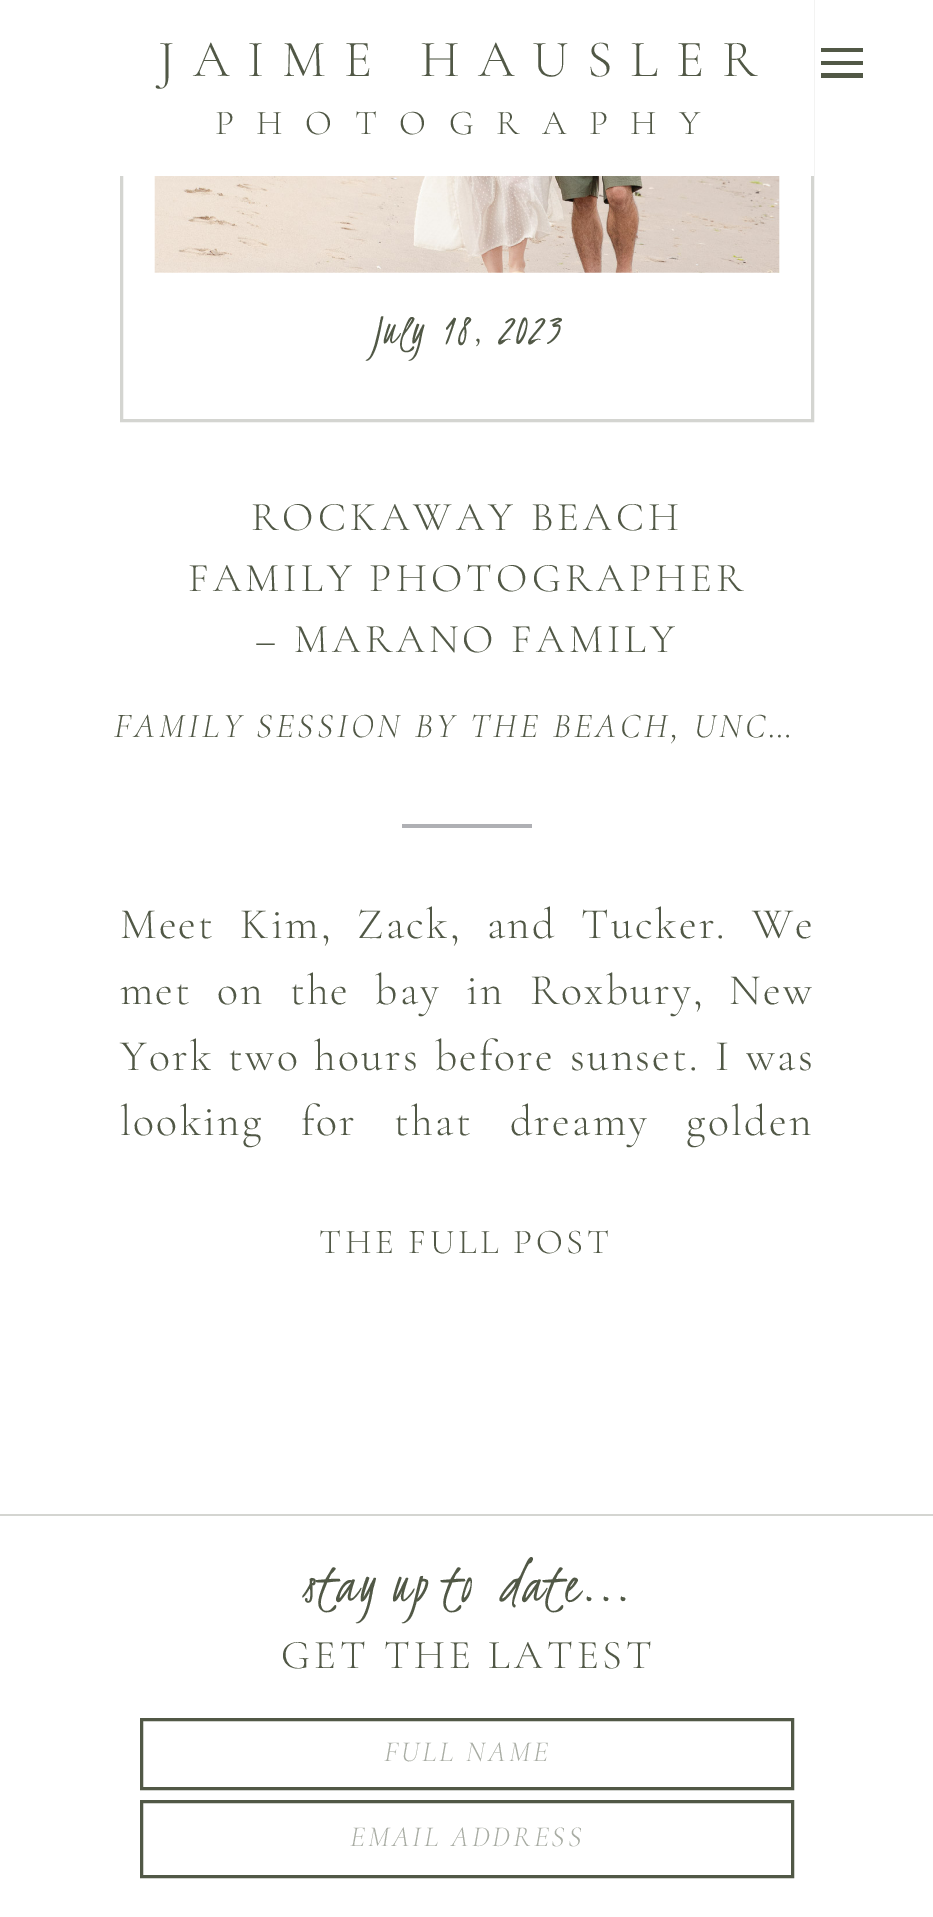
%!PS-Adobe-3.0
%%BoundingBox: 0 0 933 1917
%%LanguageLevel: 3
%%Pages: 1
%%EndComments
%%BeginProlog
/setink { 3 { 255 div 3 1 roll } repeat setrgbcolor } def
/usefont { [ exch dup neg 0 0 3 -1 roll 0 0 ] selectfont } def
/fillbox { setink rectfill } def
/drawimage { 5 dict begin { /h /w /y /x /name } { exch def } forall
  gsave x y translate w h scale
  w h 8 [w 0 0 h 0 0] name (r) file false 3 colorimage grestore end } def
%%EndProlog
%%BeginSetup
<< /PageSize [933 1917] >> setpagedevice
%%EndSetup
%%Page: 1 1
0 1917 translate 1 -1 scale
4 setmiterlimit
0 0 933 1917 255 255 255 fillbox
212 213 209 setink
3 setlinewidth
121.5 -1.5 691 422 rectstroke
120 0 694 176 255 255 255 fillbox
/CormorantGaramond-Light 52.5 usefont
81 88 70 setink
158 76 moveto 17.9 0 (JAIME HAUSLER) ashow
821 61 moveto 863 61 lineto 863 65 lineto 821 65 lineto closepath 821 48 moveto 863 48 lineto 863 52 lineto 821 52 lineto closepath 821 73 moveto 863 73 lineto 863 78 lineto 821 78 lineto closepath fill
/CormorantGaramond-Light 35 usefont
215 134 moveto 22.5 0 (PHOTOGRAPHY) ashow
(assets/img1.rgb) 154 176 626 97 drawimage
/Kristi-Regular 46.5 usefont
372 343 moveto 2.3 0 (July 18, 2023) ashow
/CormorantGaramond-Light 40.9 usefont
251 530 moveto 4.1 0 (ROCKAWAY BEACH) ashow
188 591 moveto 4.1 0 (FAMILY PHOTOGRAPHER) ashow
255 652 moveto 4.1 0 (– MARANO FAMILY) ashow
/CormorantGaramond-LightItalic 35 usefont
114 737 moveto 3.5 0 (FAMILY SESSION BY THE BEACH, UNC…) ashow
402 824 130 4 175 176 180 fillbox
/CormorantGaramond-Light 43.75 usefont
81 88 70 setink
120 938 moveto 12.5 0 32 2.2 0 (Meet Kim, Zack, and Tucker. We) awidthshow
120 1004 moveto 12.25 0 32 2.2 0 (met on the bay in Roxbury, New) awidthshow
120 1070 moveto 2.25 0 32 2.2 0 (York two hours before sunset. I was) awidthshow
120 1135 moveto 24.5 0 32 2.2 0 (looking for that dreamy golden) awidthshow
/CormorantGaramond-Light 35 usefont
319 1253 moveto 3.5 0 (THE FULL POST) ashow
0 1514 933 2 212 213 209 fillbox
/Kristi-Regular 58.5 usefont
81 88 70 setink
303 1601 moveto -3.5 0 32 2.9 0 (stay up to) awidthshow
501 1601 moveto -3.5 0 32 2.9 0 (date...) awidthshow
/CormorantGaramond-Light 40.9 usefont
281 1668 moveto 4.1 0 (GET THE LATEST) ashow
141.5 1719.5 651 69 rectstroke
/CormorantGaramond-LightItalic 29.25 usefont
168 172 163 setink
384 1761 moveto 2.9 0 (FULL NAME) ashow
81 88 70 setink
141.5 1801.5 651 75 rectstroke
168 172 163 setink
350 1846 moveto 2.9 0 (EMAIL ADDRESS) ashow
showpage
%%EOF
